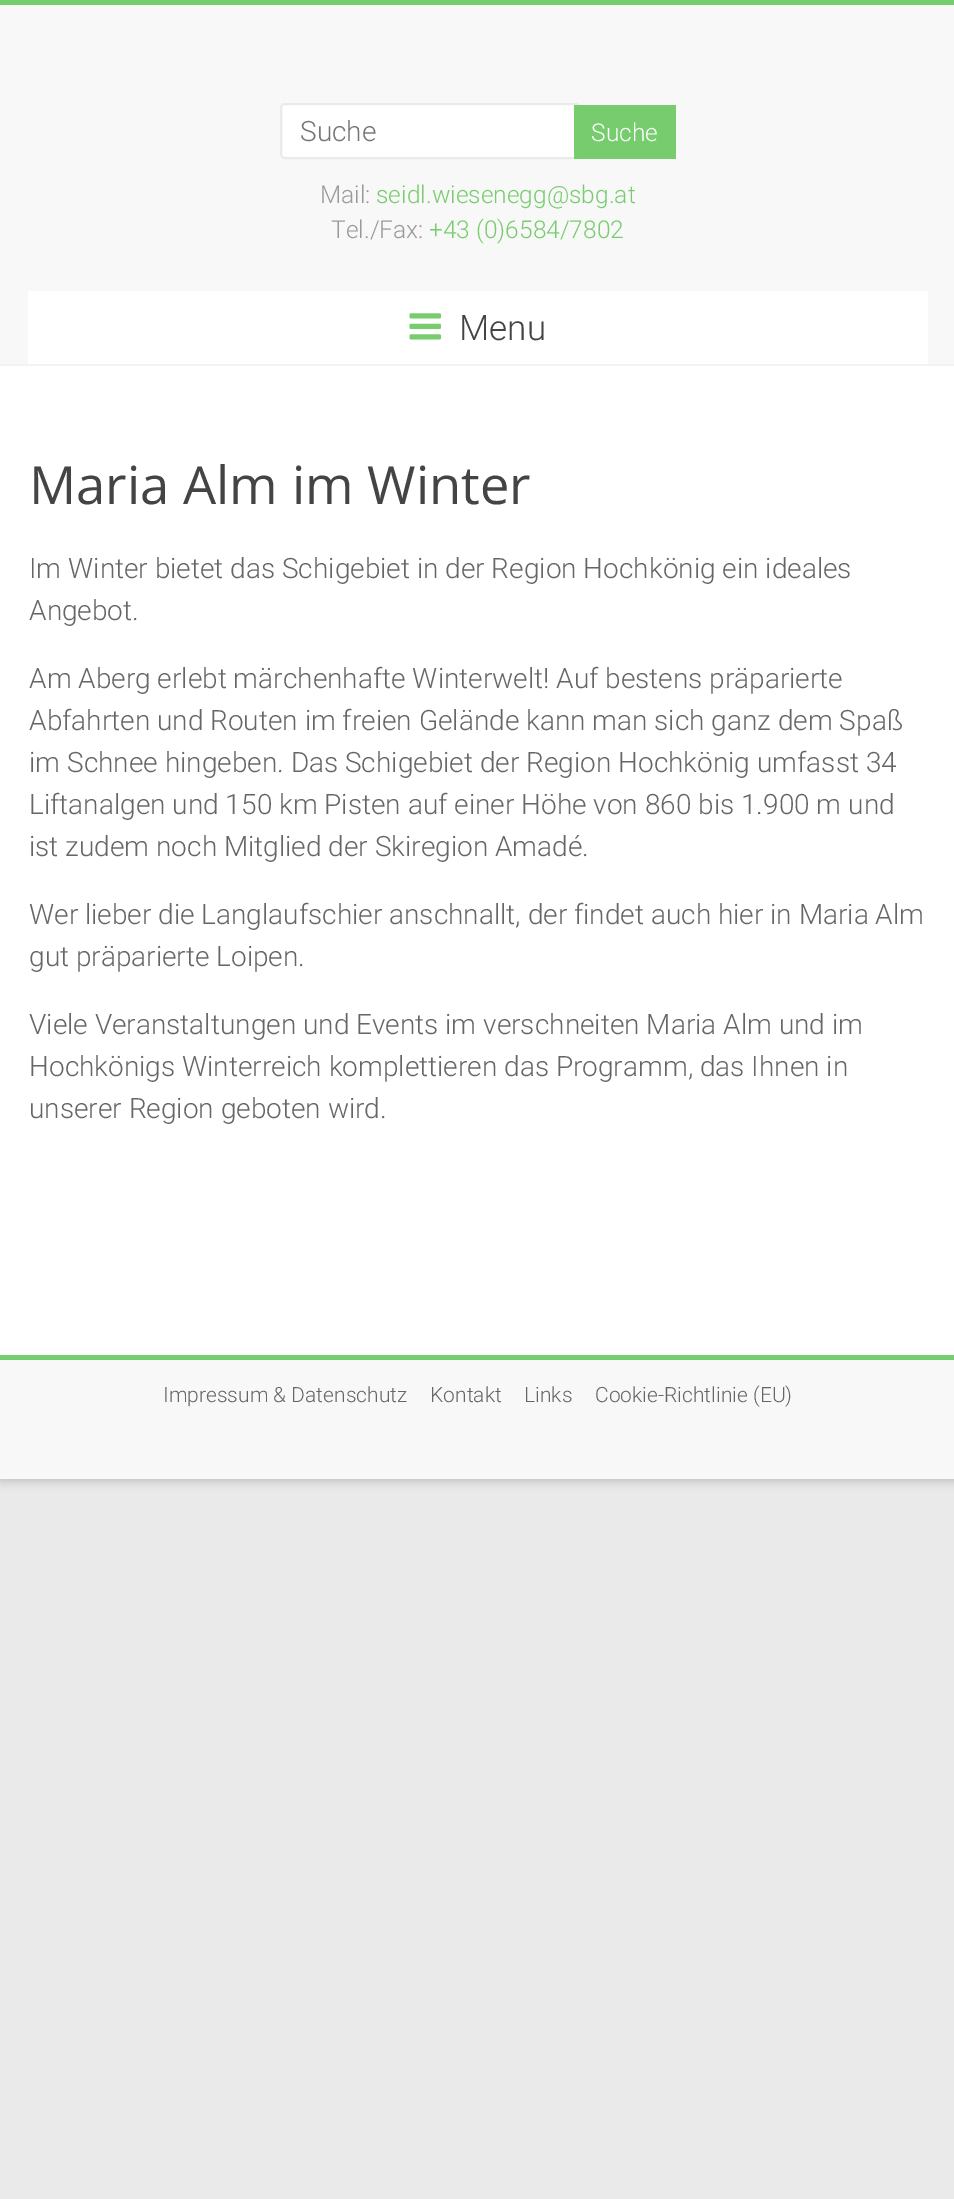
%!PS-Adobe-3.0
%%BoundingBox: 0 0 954 2199
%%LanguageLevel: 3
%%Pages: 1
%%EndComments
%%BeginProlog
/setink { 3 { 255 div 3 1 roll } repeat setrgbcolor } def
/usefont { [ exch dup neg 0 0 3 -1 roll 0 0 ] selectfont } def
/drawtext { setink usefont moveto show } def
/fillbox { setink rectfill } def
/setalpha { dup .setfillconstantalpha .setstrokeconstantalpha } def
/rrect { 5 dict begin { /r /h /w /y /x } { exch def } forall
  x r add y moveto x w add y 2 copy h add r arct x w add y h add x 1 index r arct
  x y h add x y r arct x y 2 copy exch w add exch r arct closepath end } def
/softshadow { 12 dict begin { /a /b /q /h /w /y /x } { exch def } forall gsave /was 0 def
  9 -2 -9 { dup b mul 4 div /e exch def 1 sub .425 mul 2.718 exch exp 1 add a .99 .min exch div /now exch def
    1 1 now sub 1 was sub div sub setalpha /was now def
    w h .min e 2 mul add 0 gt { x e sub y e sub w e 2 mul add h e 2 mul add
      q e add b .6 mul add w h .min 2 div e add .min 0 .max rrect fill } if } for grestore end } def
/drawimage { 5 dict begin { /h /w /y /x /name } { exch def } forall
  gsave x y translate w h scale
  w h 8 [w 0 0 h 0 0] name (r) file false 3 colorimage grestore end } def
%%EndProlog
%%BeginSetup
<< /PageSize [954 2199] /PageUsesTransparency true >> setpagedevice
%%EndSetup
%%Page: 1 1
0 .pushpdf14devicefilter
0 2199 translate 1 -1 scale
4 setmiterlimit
0 0 954 2199 234 234 234 fillbox
100 100 100 setink
0 4 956 1478 0 5 0.3 softshadow
0 366 954 989 255 255 255 fillbox
0 0 954 5 119 204 109 fillbox
0 5 954 359 248 248 248 fillbox
0 364 954 2 242 242 242 fillbox
255 255 255 setink
281 104 299 54 4 rrect gsave fill grestore
234 234 234 setink
2 setlinewidth
stroke
(Suche) 300 141 /Roboto-Light 28 117 117 117 drawtext
574 105 102 54 119 204 109 fillbox
(Suche) 591 141 /Roboto-Light 24.5 255 255 255 drawtext
(Mail:) 320 203 /Roboto-Light 24.5 153 153 153 drawtext
(seidl.wiesenegg@sbg.at) 376 203 /Roboto-Light 24.5 119 204 109 drawtext
(Tel./Fax:) 331 238 /Roboto-Light 24.5 153 153 153 drawtext
(+43 \(0\)6584/7802) 429 238 /Roboto-Light 24.5 119 204 109 drawtext
28 291 900 73 255 255 255 fillbox
(assets/img1.rgb) 409 313 32 27 drawimage
(Menu) 459 340 /Roboto-Light 35 68 68 68 drawtext
(Maria Alm im Winter) 29 504 /OpenSans-Regular 52.5 68 68 68 drawtext
(Im Winter bietet das Schigebiet in der Region Hochkönig ein ideales) 29 578 /Roboto-Light 28 102 102 102 drawtext
(Angebot.) 29 620 /Roboto-Light 28 102 102 102 drawtext
(Am Aberg erlebt märchenhafte Winterwelt! Auf bestens präparierte) 29 688 /Roboto-Light 28 102 102 102 drawtext
(Abfahrten und Routen im freien Gelände kann man sich ganz dem Spaß) 29 730 /Roboto-Light 28 102 102 102 drawtext
(im Schnee hingeben. Das Schigebiet der Region Hochkönig umfasst 34) 29 772 /Roboto-Light 28 102 102 102 drawtext
(Liftanalgen und 150 km Pisten auf einer Höhe von 860 bis 1.900 m und) 29 814 /Roboto-Light 28 102 102 102 drawtext
(ist zudem noch Mitglied der Skiregion Amadé.) 29 856 /Roboto-Light 28 102 102 102 drawtext
(Wer lieber die Langlaufschier anschnallt, der findet auch hier in Maria Alm) 29 924 /Roboto-Light 28 102 102 102 drawtext
(gut präparierte Loipen.) 29 966 /Roboto-Light 28 102 102 102 drawtext
(Viele Veranstaltungen und Events im verschneiten Maria Alm und im) 29 1034 /Roboto-Light 28 102 102 102 drawtext
(Hochkönigs Winterreich komplettieren das Programm, das Ihnen in) 29 1076 /Roboto-Light 28 102 102 102 drawtext
(unserer Region geboten wird.) 29 1118 /Roboto-Light 28 102 102 102 drawtext
0 1360 954 119 248 248 248 fillbox
0 1355 954 5 119 204 109 fillbox
(Impressum & Datenschutz) 163 1402 /Roboto-Light 21 102 102 102 drawtext
(Kontakt) 430 1402 /Roboto-Light 21 102 102 102 drawtext
(Links) 524 1402 /Roboto-Light 21 102 102 102 drawtext
(Cookie-Richtlinie \(EU\)) 595 1402 /Roboto-Light 21 102 102 102 drawtext
.poppdf14devicefilter showpage
%%EOF
